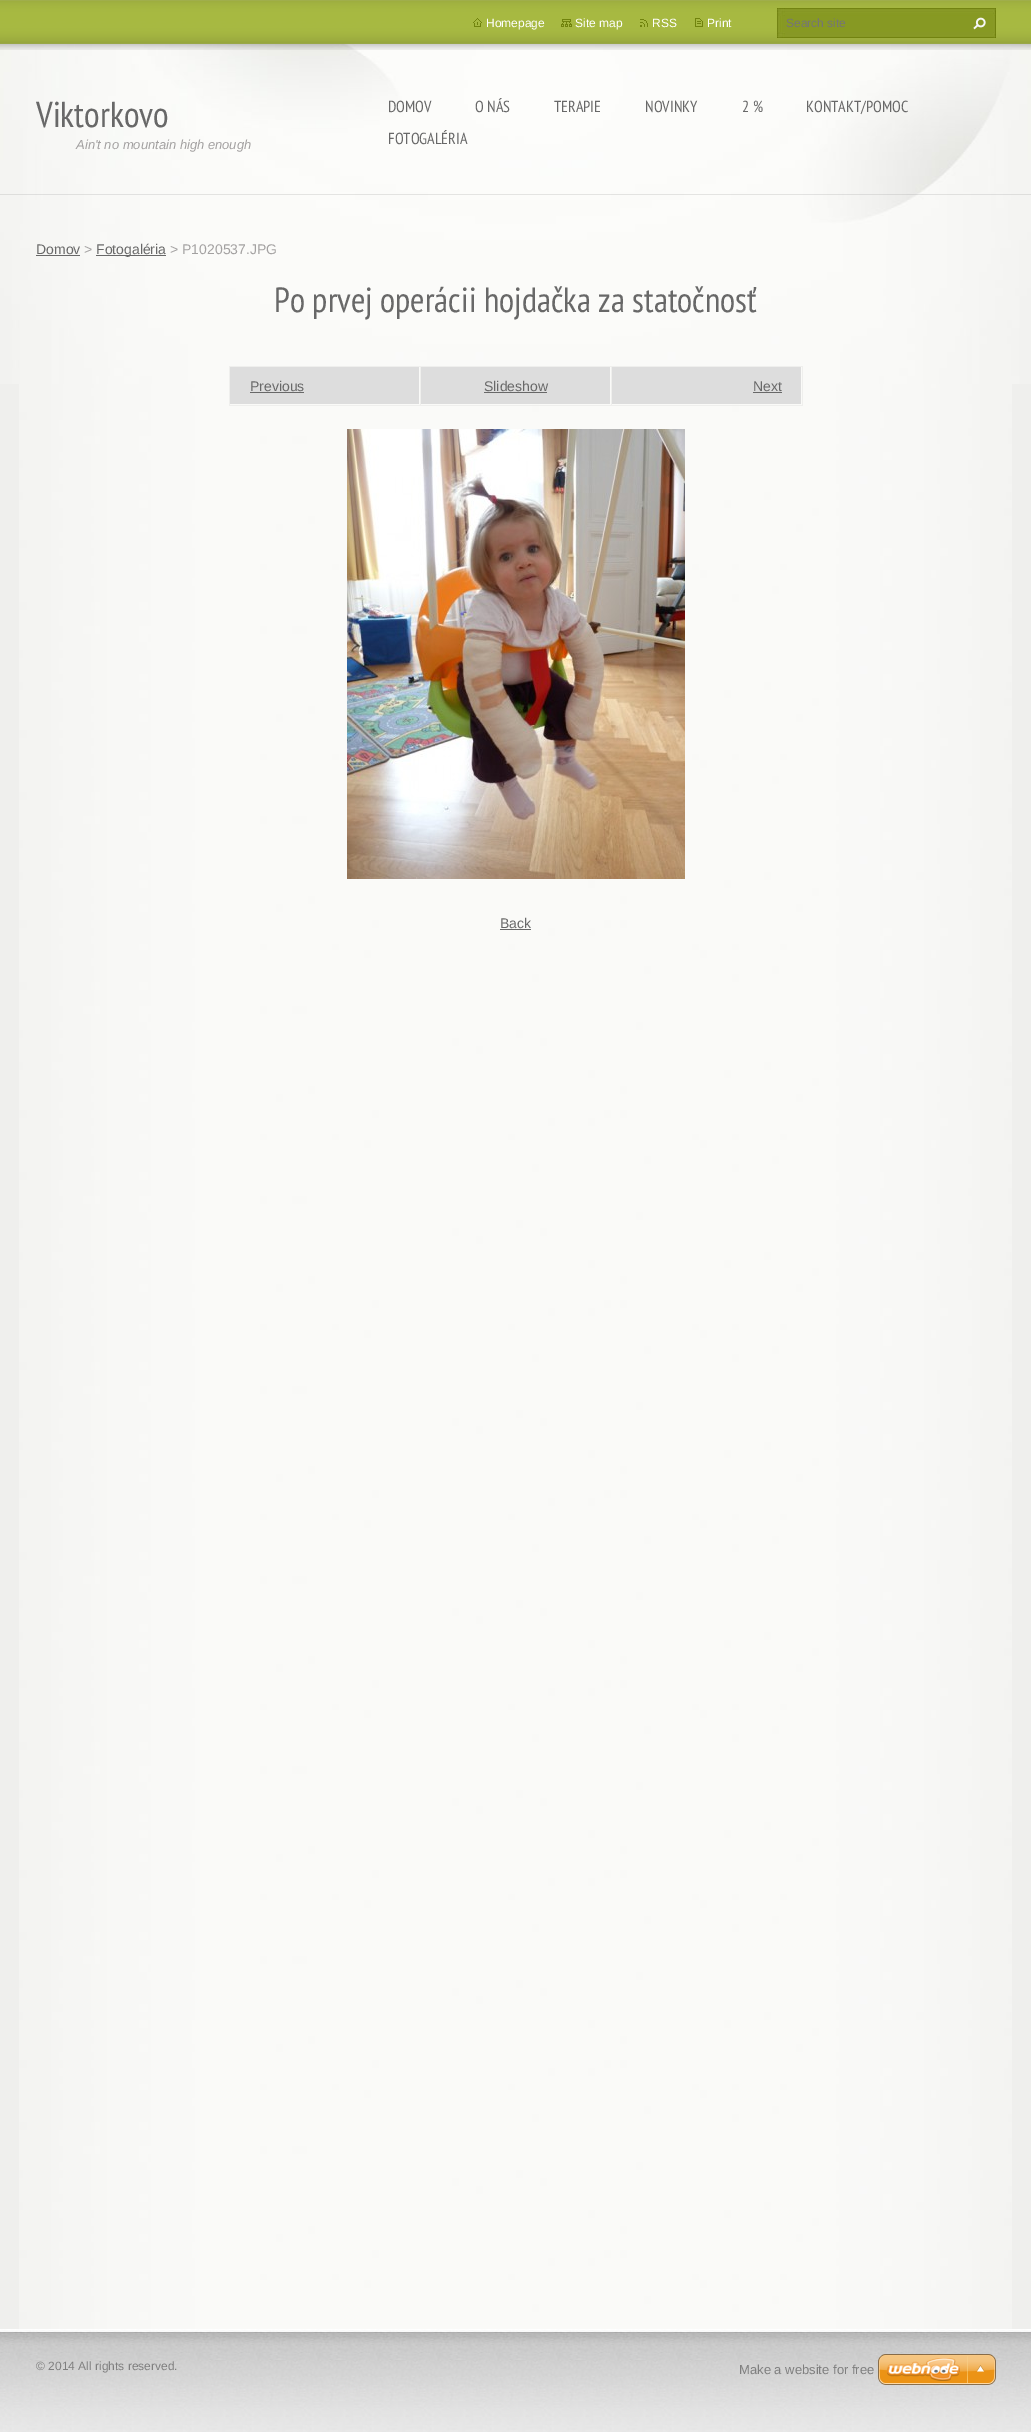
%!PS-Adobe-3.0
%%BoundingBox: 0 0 1031 2432
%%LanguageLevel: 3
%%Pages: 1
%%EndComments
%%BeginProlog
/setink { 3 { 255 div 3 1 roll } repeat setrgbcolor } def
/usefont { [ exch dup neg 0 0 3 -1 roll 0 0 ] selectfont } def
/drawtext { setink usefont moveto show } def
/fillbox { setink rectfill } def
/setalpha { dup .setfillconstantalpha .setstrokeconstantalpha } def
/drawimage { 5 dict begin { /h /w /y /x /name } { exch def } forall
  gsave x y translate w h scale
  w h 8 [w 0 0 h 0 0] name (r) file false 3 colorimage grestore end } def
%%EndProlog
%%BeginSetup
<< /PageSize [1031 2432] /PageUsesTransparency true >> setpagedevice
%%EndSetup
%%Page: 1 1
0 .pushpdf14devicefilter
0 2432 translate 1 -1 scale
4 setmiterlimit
0 0 1031 2432 239 239 237 fillbox
(assets/img1.rgb) 19 384 993 1945 drawimage
(assets/img2.rgb) 0 44 1031 340 drawimage
0.26 setalpha
0 194 1031 1 158 158 158 fillbox
1 setalpha
(assets/img3.rgb) 0 0 1031 50 drawimage
(assets/img4.rgb) 473 18 9 9 drawimage
(Homepage) 486 27 /LiberationSans-Regular 12 255 255 255 drawtext
(assets/img5.rgb) 561 19 11 8 drawimage
(Site map) 575 27 /LiberationSans-Regular 12 255 255 255 drawtext
(assets/img6.rgb) 640 19 8 8 drawimage
(RSS) 652 27 /LiberationSans-Regular 12 255 255 255 drawtext
(assets/img7.rgb) 695 18 8 9 drawimage
(Print) 707 27 /LiberationSans-Regular 12 255 255 255 drawtext
(assets/img8.rgb) 777 8 219 30 drawimage
(Search site) 786 27 /LiberationSans-Regular 12 117 117 117 drawtext
(assets/img9.rgb) 973 17 13 13 drawimage
gsave
36 80 300 95 rectclip
(Viktorkovo) 36 127 /PTSansNarrow-Regular 36 104 104 104 drawtext
grestore
(Ain't no mountain high enough) 76 149 /LiberationSans-Italic 13 163 161 161 drawtext
(DOMOV) 388 112 /PTSansNarrow-Regular 16 104 104 104 drawtext
(O NÁS) 475 112 /PTSansNarrow-Regular 16 104 104 104 drawtext
(TERAPIE) 554 112 /PTSansNarrow-Regular 16 104 104 104 drawtext
(NOVINKY) 645 112 /PTSansNarrow-Regular 16 104 104 104 drawtext
(2 %) 742 112 /PTSansNarrow-Regular 16 104 104 104 drawtext
(KONTAKT/POMOC) 806 112 /PTSansNarrow-Regular 16 104 104 104 drawtext
(FOTOGALÉRIA) 388 144 /PTSansNarrow-Regular 16 104 104 104 drawtext
(Domov) 36 254 /LiberationSans-Regular 14 104 104 104 drawtext
36 255 44 1 104 104 104 fillbox
(>) 84 254 /LiberationSans-Regular 14 163 161 161 drawtext
96 255 70 1 104 104 104 fillbox
(Fotogaléria) 96 254 /LiberationSans-Regular 14 104 104 104 drawtext
(> P1020537.JPG) 170 254 /LiberationSans-Regular 14 163 161 161 drawtext
(Po prvej operácii hojdačka za statočnosť) 274 312 /PTSansNarrow-Regular 35 104 104 104 drawtext
229 366 574 1 239 239 237 fillbox
229 366 1 40 239 239 237 fillbox
230 367 189 37 221 221 221 fillbox
802 366 1 40 239 239 237 fillbox
611 405 192 1 239 239 237 fillbox
611 366 1 40 239 239 237 fillbox
420 405 192 1 239 239 237 fillbox
420 366 1 40 239 239 237 fillbox
229 405 192 1 239 239 237 fillbox
(Previous) 250 391 /LiberationSans-Regular 14 104 104 104 drawtext
250 392 54 1 104 104 104 fillbox
421 367 189 37 221 221 221 fillbox
(Slideshow) 484 391 /LiberationSans-Regular 14 104 104 104 drawtext
484 392 63 1 104 104 104 fillbox
612 367 189 37 221 221 221 fillbox
(Next) 753 391 /LiberationSans-Regular 14 104 104 104 drawtext
753 392 29 1 104 104 104 fillbox
(assets/img10.rgb) 347 429 338 450 drawimage
(Back) 500 928 /LiberationSans-Regular 14 104 104 104 drawtext
500 929 31 1 104 104 104 fillbox
(assets/img11.rgb) 0 2329 1031 103 drawimage
gsave
36 2329 480 103 rectclip
(© 2014 All rights reserved.) 36 2370 /LiberationSans-Regular 12 127 127 127 drawtext
grestore
(Make a website for free) 739 2374 /LiberationSans-Regular 13 127 127 127 drawtext
(assets/img12.rgb) 878 2354 118 31 drawimage
.poppdf14devicefilter showpage
%%EOF
